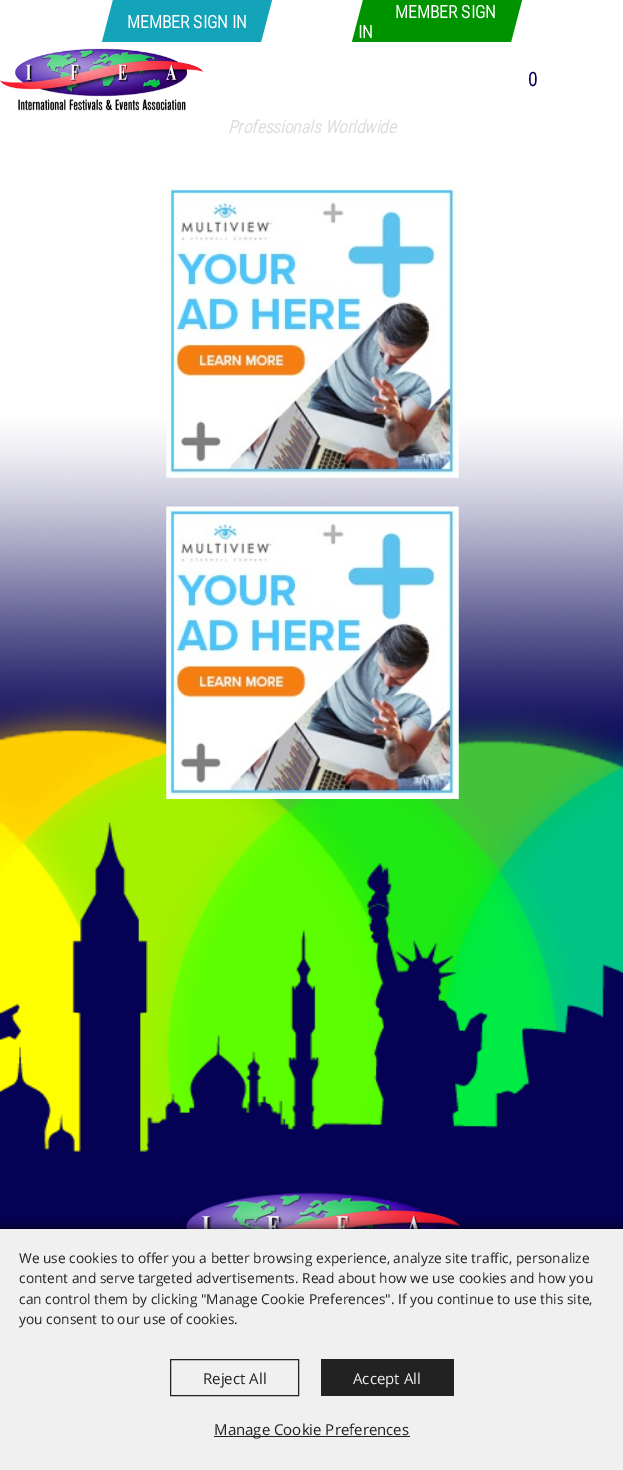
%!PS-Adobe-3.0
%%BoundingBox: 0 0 623 1470
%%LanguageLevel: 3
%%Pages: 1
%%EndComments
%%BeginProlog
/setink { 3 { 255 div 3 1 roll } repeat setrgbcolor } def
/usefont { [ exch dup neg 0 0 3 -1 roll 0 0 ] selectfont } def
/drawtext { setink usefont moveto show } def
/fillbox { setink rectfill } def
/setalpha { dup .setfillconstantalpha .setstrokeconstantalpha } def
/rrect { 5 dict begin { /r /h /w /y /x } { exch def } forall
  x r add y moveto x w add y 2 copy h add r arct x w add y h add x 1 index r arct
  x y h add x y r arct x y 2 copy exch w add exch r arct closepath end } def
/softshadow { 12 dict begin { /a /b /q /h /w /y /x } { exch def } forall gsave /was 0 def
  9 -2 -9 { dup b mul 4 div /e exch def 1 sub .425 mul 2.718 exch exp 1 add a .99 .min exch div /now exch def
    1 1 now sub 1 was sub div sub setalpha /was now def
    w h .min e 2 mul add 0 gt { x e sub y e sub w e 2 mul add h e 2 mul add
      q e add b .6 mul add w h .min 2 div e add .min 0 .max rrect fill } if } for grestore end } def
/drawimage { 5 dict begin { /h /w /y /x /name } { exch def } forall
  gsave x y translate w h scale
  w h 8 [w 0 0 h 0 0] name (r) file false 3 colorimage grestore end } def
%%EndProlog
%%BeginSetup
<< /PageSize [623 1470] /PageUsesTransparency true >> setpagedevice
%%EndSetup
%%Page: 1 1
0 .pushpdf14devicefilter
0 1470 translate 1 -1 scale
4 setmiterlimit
0 0 623 1470 5 1 85 fillbox
0 0 623 118 255 255 255 fillbox
20 164 185 setink
113 0 moveto 272 0 lineto 261 42 lineto 102 42 lineto closepath fill
(MEMBER SIGN IN) 127 28 /RobotoCondensed-Bold 17.5 255 255 255 drawtext
0 147 0 setink
363 0 moveto 522 0 lineto 511 42 lineto 352 42 lineto closepath fill
(MEMBER SIGN) 395 18 /RobotoCondensed-Bold 17.5 255 255 255 drawtext
(IN) 358 38 /RobotoCondensed-Bold 17.5 255 255 255 drawtext
(assets/img1.rgb) 0 48 204 63 drawimage
(0) 528 86 /RobotoCondensed-Bold 19 5 1 85 drawtext
(assets/img2.rgb) 0 118 623 1034 drawimage
(Professionals Worldwide) 228 133 /RobotoCondensed-BoldItalic 17.5 222 222 222 drawtext
(assets/img3.rgb) 166 185 293 293 drawimage
(assets/img4.rgb) 166 506 293 293 drawimage
(assets/img5.rgb) 186 1192 275 37 drawimage
0 0 0 setink
-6 1229 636 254 0 6 1 softshadow
0 1229 623 241 240 240 240 fillbox
(We use cookies to offer you a better browsing experience, analyze site traffic, personalize) 19 1263 /OpenSans-Regular 13.75 34 34 34 drawtext
(content and serve targeted advertisements. Read about how we use cookies and how you) 19 1283 /OpenSans-Regular 13.75 34 34 34 drawtext
(can control them by clicking "Manage Cookie Preferences". If you continue to use this site,) 19 1304 /OpenSans-Regular 13.75 34 34 34 drawtext
(you consent to our use of cookies.) 19 1324 /OpenSans-Regular 13.75 34 34 34 drawtext
170.5 1359.5 128 36 rectstroke
(Reject All) 203 1384 /OpenSans-Regular 15 34 34 34 drawtext
321 1359 133 37 34 34 34 fillbox
(Accept All) 353 1384 /OpenSans-Regular 15 240 240 240 drawtext
214 1436 196 1 34 34 34 fillbox
(Manage Cookie Preferences) 214 1435 /OpenSans-Regular 15 34 34 34 drawtext
.poppdf14devicefilter showpage
%%EOF
